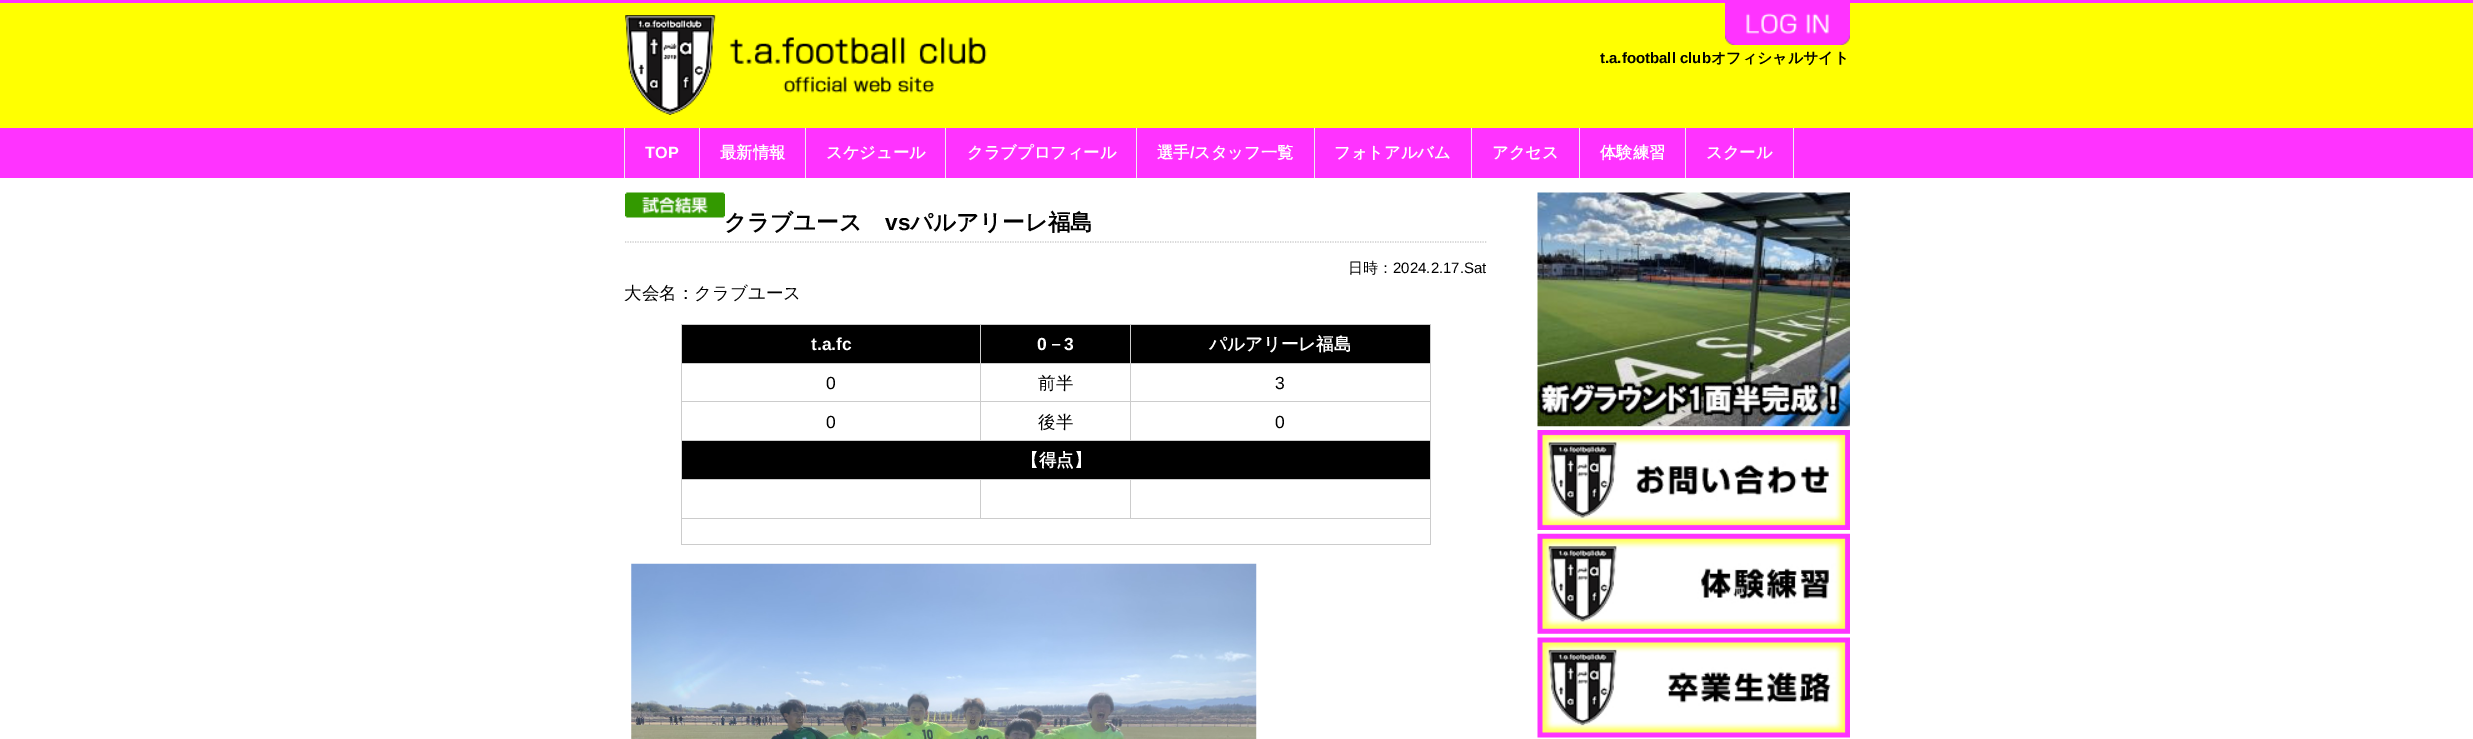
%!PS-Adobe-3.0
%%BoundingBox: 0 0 2473 739
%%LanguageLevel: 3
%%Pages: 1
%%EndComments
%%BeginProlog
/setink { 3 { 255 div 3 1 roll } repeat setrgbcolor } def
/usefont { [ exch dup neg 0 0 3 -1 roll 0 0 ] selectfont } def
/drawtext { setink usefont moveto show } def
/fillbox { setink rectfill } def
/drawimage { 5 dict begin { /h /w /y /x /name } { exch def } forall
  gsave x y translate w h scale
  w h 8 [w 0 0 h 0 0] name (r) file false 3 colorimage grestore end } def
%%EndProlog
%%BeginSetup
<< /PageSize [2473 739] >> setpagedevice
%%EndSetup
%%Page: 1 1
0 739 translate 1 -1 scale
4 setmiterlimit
0 0 2473 739 255 255 255 fillbox
0 3 2473 125 255 255 1 fillbox
0 0 2473 3 255 51 255 fillbox
(assets/img1.rgb) 625 15 362 100 drawimage
(assets/img2.rgb) 1725 3 125 42 drawimage
(t.a.football club) 1600 63 /LiberationSans-Bold 15 0 0 0 drawtext
(オフィシャルサイト) 1711 63 /WenQuanYiZenHei-Bold 15 0 0 0 drawtext
0 128 2473 50 255 51 255 fillbox
624 128 1 50 238 238 238 fillbox
699 128 1 50 238 238 238 fillbox
(TOP) 645 158 /LiberationSans-Bold 16.25 255 255 255 drawtext
805 128 1 50 238 238 238 fillbox
(最新情報) 720 158 /WenQuanYiZenHei-Bold 16.25 255 255 255 drawtext
945 128 1 50 238 238 238 fillbox
(スケジュール) 826 158 /WenQuanYiZenHei-Bold 16.25 255 255 255 drawtext
1136 128 1 50 238 238 238 fillbox
(クラブプロフィール) 967 158 /WenQuanYiZenHei-Bold 16.25 255 255 255 drawtext
1314 128 1 50 238 238 238 fillbox
(選手) 1157 158 /WenQuanYiZenHei-Bold 16.25 255 255 255 drawtext
(/) 1190 158 /LiberationSans-Bold 16.25 255 255 255 drawtext
(スタッフ一覧) 1194 158 /WenQuanYiZenHei-Bold 16.25 255 255 255 drawtext
1471 128 1 50 238 238 238 fillbox
(フォトアルバム) 1334 158 /WenQuanYiZenHei-Bold 16.25 255 255 255 drawtext
1579 128 1 50 238 238 238 fillbox
(アクセス) 1492 158 /WenQuanYiZenHei-Bold 16.25 255 255 255 drawtext
1685 128 1 50 238 238 238 fillbox
(体験練習) 1600 158 /WenQuanYiZenHei-Bold 16.25 255 255 255 drawtext
1793 128 1 50 238 238 238 fillbox
(スクール) 1706 158 /WenQuanYiZenHei-Bold 16.25 255 255 255 drawtext
204 204 204 setink
1.2 setlinewidth
[1.25 1.25] 0 setdash
625 242 moveto 1487.5 242 lineto stroke
(assets/img3.rgb) 625 192 100 26 drawimage
(クラブユース) 724 230 /WenQuanYiZenHei-Bold 22.5 0 0 0 drawtext
(vs) 885 230 /LiberationSans-Bold 22.5 0 0 0 drawtext
(パルアリーレ福島) 910 230 /WenQuanYiZenHei-Bold 22.5 0 0 0 drawtext
(日時：) 1348 273 /WenQuanYiZenHei-Medium 15 0 0 0 drawtext
(2024.2.17.Sat) 1393 273 /LiberationSans-Regular 15 0 0 0 drawtext
(大会名：クラブユース) 624 299 /WenQuanYiZenHei-Medium 17.5 0 0 0 drawtext
681 324 750 1 204 204 204 fillbox
1430 324 1 221 204 204 204 fillbox
681 544 750 1 204 204 204 fillbox
681 324 1 221 204 204 204 fillbox
682 325 298 38 0 0 0 fillbox
(t.a.fc) 811 350 /LiberationSans-Bold 17.5 255 255 255 drawtext
981 325 149 38 0 0 0 fillbox
1130 363 301 1 204 204 204 fillbox
1130 401 301 1 204 204 204 fillbox
681 440 750 1 204 204 204 fillbox
1130 401 1 40 204 204 204 fillbox
980 401 151 1 204 204 204 fillbox
1130 363 1 40 204 204 204 fillbox
980 363 151 1 204 204 204 fillbox
980 401 1 40 204 204 204 fillbox
681 401 300 1 204 204 204 fillbox
980 363 1 40 204 204 204 fillbox
681 363 300 1 204 204 204 fillbox
980 324 1 40 204 204 204 fillbox
(0) 1037 350 /LiberationSans-Bold 17.5 255 255 255 drawtext
(－) 1047 350 /WenQuanYiZenHei-Bold 17.5 255 255 255 drawtext
(3) 1064 350 /LiberationSans-Bold 17.5 255 255 255 drawtext
1131 325 299 38 0 0 0 fillbox
1130 324 1 40 204 204 204 fillbox
(パルアリーレ福島) 1209 350 /WenQuanYiZenHei-Bold 17.5 255 255 255 drawtext
(0) 826 389 /LiberationSans-Regular 17.5 0 0 0 drawtext
(前半) 1038 389 /WenQuanYiZenHei-Medium 17.5 0 0 0 drawtext
(3) 1275 389 /LiberationSans-Regular 17.5 0 0 0 drawtext
(0) 826 428 /LiberationSans-Regular 17.5 0 0 0 drawtext
(後半) 1038 428 /WenQuanYiZenHei-Medium 17.5 0 0 0 drawtext
(0) 1275 428 /LiberationSans-Regular 17.5 0 0 0 drawtext
682 441 748 38 0 0 0 fillbox
(【得点】) 1021 466 /WenQuanYiZenHei-Bold 17.5 255 255 255 drawtext
1130 479 301 1 204 204 204 fillbox
681 518 750 1 204 204 204 fillbox
1130 479 1 40 204 204 204 fillbox
980 479 151 1 204 204 204 fillbox
980 479 1 40 204 204 204 fillbox
681 479 300 1 204 204 204 fillbox
(assets/img4.rgb) 631 563 626 176 drawimage
(assets/img5.rgb) 1537 192 313 235 drawimage
(assets/img6.rgb) 1537 430 313 100 drawimage
(assets/img7.rgb) 1537 533 313 101 drawimage
(assets/img8.rgb) 1537 637 313 101 drawimage
showpage
%%EOF
